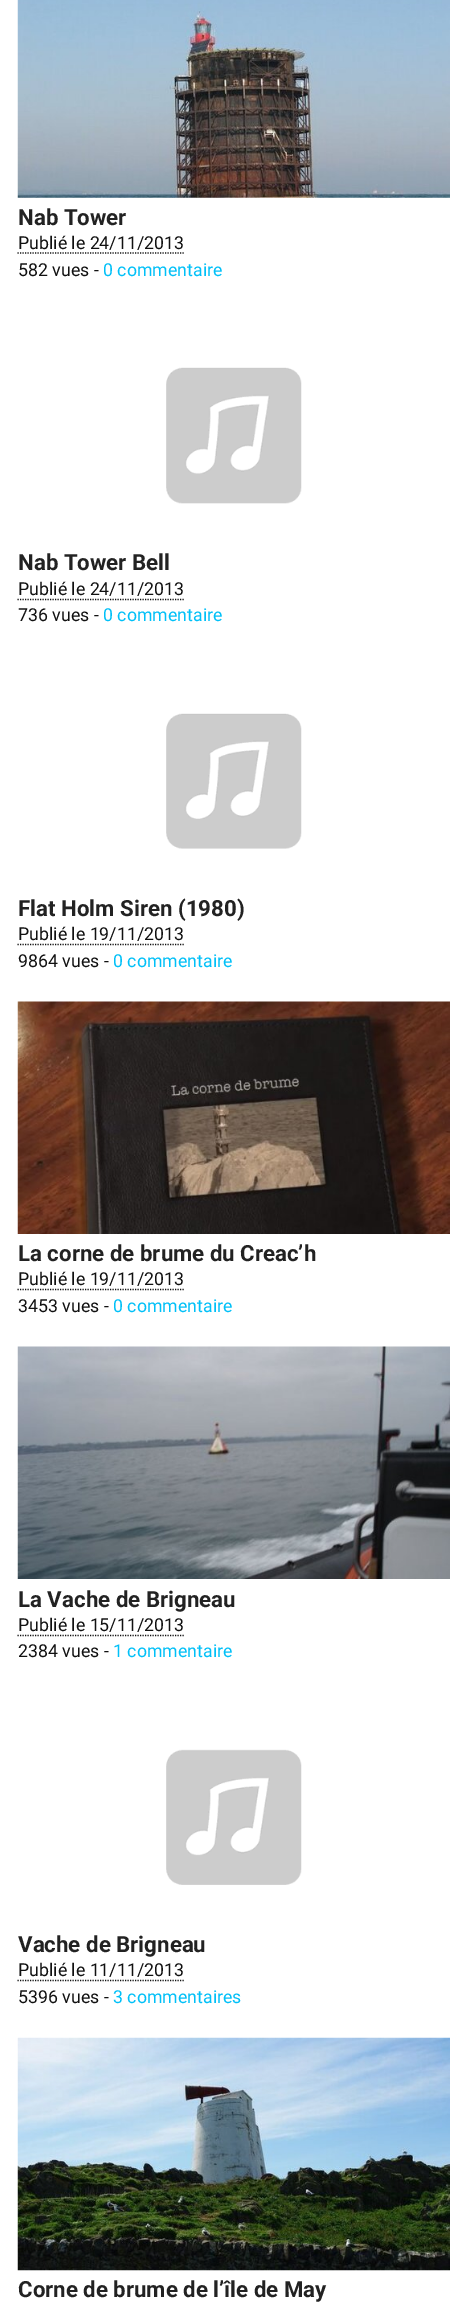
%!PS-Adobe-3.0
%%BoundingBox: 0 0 467 2312
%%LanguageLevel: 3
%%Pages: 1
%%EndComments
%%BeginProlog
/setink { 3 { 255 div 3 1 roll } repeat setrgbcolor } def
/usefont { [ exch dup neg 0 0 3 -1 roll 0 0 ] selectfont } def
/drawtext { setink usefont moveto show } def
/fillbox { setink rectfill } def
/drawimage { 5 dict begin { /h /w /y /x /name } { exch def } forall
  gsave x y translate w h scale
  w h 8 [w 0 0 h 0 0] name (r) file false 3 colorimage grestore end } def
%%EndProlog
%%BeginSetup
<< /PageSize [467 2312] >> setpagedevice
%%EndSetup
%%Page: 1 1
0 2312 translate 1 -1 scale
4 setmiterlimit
0 0 467 2312 255 255 255 fillbox
(assets/img1.rgb) 17 0 433 198 drawimage
(Nab Tower) 18 225 /Roboto-Bold 22.25 34 34 34 drawtext
(Publié le 24/11/2013) 18 249 /Roboto-Regular 17.75 17 17 17 drawtext
1.2 setlinewidth
[1.25 1.25] 0 setdash
17.5 253 moveto 184 253 lineto stroke
(582 vues -) 18 276 /Roboto-Regular 17.75 17 17 17 drawtext
(0 commentaire) 103 276 /Roboto-Regular 17.75 0 192 248 drawtext
(assets/img2.rgb) 166 367 136 137 drawimage
(Nab Tower Bell) 18 570 /Roboto-Bold 22.25 34 34 34 drawtext
(Publié le 24/11/2013) 18 595 /Roboto-Regular 17.75 17 17 17 drawtext
17.5 599.5 moveto 184 599.5 lineto stroke
(736 vues -) 18 621 /Roboto-Regular 17.75 17 17 17 drawtext
(0 commentaire) 103 621 /Roboto-Regular 17.75 0 192 248 drawtext
(assets/img3.rgb) 166 713 136 136 drawimage
(Flat Holm Siren \(1980\)) 18 916 /Roboto-Bold 22.25 34 34 34 drawtext
(Publié le 19/11/2013) 18 940 /Roboto-Regular 17.75 17 17 17 drawtext
17.5 944.5 moveto 184 944.5 lineto stroke
(9864 vues -) 18 967 /Roboto-Regular 17.75 17 17 17 drawtext
(0 commentaire) 113 967 /Roboto-Regular 17.75 0 192 248 drawtext
(assets/img4.rgb) 17 1001 433 233 drawimage
(La corne de brume du Creac’h) 18 1261 /Roboto-Bold 22.25 34 34 34 drawtext
(Publié le 19/11/2013) 18 1285 /Roboto-Regular 17.75 17 17 17 drawtext
17.5 1289.5 moveto 184 1289.5 lineto stroke
(3453 vues -) 18 1312 /Roboto-Regular 17.75 17 17 17 drawtext
(0 commentaire) 113 1312 /Roboto-Regular 17.75 0 192 248 drawtext
(assets/img5.rgb) 17 1346 433 233 drawimage
(La Vache de Brigneau) 18 1607 /Roboto-Bold 22.25 34 34 34 drawtext
(Publié le 15/11/2013) 18 1631 /Roboto-Regular 17.75 17 17 17 drawtext
17.5 1635.5 moveto 184 1635.5 lineto stroke
(2384 vues -) 18 1657 /Roboto-Regular 17.75 17 17 17 drawtext
(1 commentaire) 113 1657 /Roboto-Regular 17.75 0 192 248 drawtext
(assets/img6.rgb) 166 1749 136 136 drawimage
(Vache de Brigneau) 18 1952 /Roboto-Bold 22.25 34 34 34 drawtext
(Publié le 11/11/2013) 18 1976 /Roboto-Regular 17.75 17 17 17 drawtext
17.5 1980.5 moveto 184 1980.5 lineto stroke
(5396 vues -) 18 2003 /Roboto-Regular 17.75 17 17 17 drawtext
(3 commentaires) 113 2003 /Roboto-Regular 17.75 0 192 248 drawtext
(assets/img7.rgb) 17 2037 433 234 drawimage
(Corne de brume de l’île de May) 18 2297 /Roboto-Bold 22.25 34 34 34 drawtext
showpage
%%EOF
